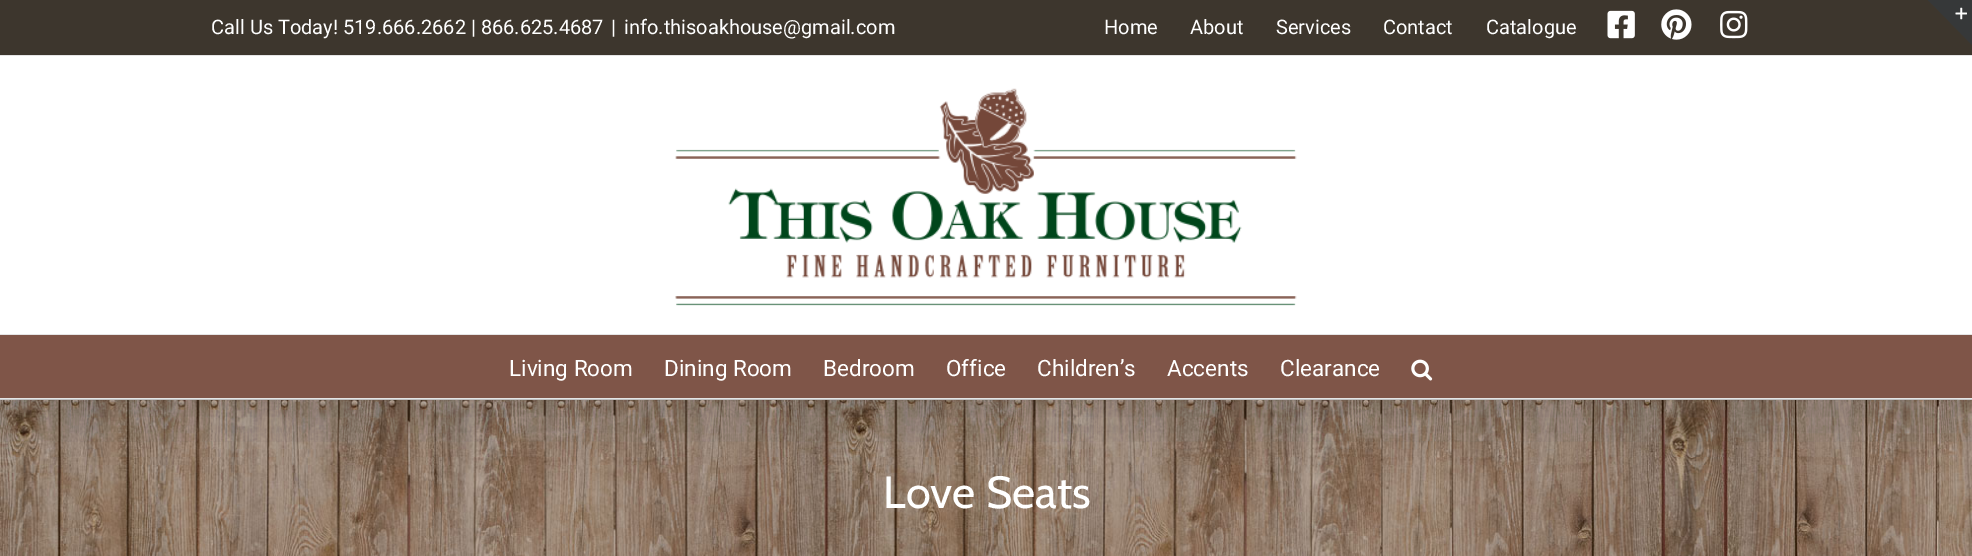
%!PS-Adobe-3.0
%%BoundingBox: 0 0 1972 556
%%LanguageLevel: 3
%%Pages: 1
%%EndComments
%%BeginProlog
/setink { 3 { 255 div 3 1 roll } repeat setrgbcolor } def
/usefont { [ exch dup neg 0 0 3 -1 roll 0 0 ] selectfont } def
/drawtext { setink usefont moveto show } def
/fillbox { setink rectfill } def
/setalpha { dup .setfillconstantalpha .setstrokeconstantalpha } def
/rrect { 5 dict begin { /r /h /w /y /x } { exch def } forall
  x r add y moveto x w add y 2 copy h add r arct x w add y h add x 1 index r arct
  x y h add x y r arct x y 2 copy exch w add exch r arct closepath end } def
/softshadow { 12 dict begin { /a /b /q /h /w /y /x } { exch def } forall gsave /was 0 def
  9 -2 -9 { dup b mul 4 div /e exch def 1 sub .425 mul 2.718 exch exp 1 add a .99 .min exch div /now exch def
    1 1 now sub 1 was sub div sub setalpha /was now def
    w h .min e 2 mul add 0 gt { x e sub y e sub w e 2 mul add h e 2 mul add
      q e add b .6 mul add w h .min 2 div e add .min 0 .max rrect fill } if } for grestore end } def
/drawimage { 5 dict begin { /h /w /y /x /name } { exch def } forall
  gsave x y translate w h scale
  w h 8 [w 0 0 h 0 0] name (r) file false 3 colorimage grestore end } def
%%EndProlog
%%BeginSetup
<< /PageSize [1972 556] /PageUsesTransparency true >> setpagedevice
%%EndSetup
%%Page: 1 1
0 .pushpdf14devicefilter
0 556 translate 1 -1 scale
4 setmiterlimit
0 0 1972 556 255 255 255 fillbox
(assets/img7.rgb) 0 400 1972 156 drawimage
0 399 1972 1 210 211 212 fillbox
gsave
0 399 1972 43 rectclip
0 0 0 setink
3 15 1967 394 0 31 0.14 softshadow
grestore
0 0 1972 55 61 54 45 fillbox
0 55 1972 1 229 229 229 fillbox
(Call Us Today! 519.666.2662 | 866.625.4687) 211 34 /Roboto-Regular 20 255 255 255 drawtext
(|) 611 34 /Roboto-Regular 20 255 255 255 drawtext
(info.thisoakhouse@gmail.com) 624 34 /Roboto-Regular 20 255 255 255 drawtext
(Home) 1104 34 /Roboto-Regular 20 255 255 255 drawtext
(About) 1190 34 /Roboto-Regular 20 255 255 255 drawtext
(Services) 1276 34 /Roboto-Regular 20 255 255 255 drawtext
(Contact) 1383 34 /Roboto-Regular 20 255 255 255 drawtext
(Catalogue) 1486 34 /Roboto-Regular 20 255 255 255 drawtext
(assets/img1.rgb) 1607 10 28 29 drawimage
(assets/img2.rgb) 1661 9 31 31 drawimage
(assets/img3.rgb) 1720 10 28 29 drawimage
0 334 1972 1 229 229 229 fillbox
(assets/img4.rgb) 675 88 622 218 drawimage
0 335 1972 63 127 85 72 fillbox
0 398 1972 1 229 229 229 fillbox
(Living Room) 509 376 /Roboto-Regular 22.5 255 255 255 drawtext
(Dining Room) 664 376 /Roboto-Regular 22.5 255 255 255 drawtext
(Bedroom) 823 376 /Roboto-Regular 22.5 255 255 255 drawtext
(Office) 946 376 /Roboto-Regular 22.5 255 255 255 drawtext
(Children’s) 1037 376 /Roboto-Regular 22.5 255 255 255 drawtext
(Accents) 1167 376 /Roboto-Regular 22.5 255 255 255 drawtext
(Clearance) 1280 376 /Roboto-Regular 22.5 255 255 255 drawtext
(assets/img5.rgb) 1411 359 22 22 drawimage
54 56 57 setink
1928 0 moveto 1972 0 lineto 1972 45 lineto closepath fill
(assets/img6.rgb) 1955 7 12 13 drawimage
(Love Seats) 883 508 /Cabin-Regular 45 255 255 255 drawtext
.poppdf14devicefilter showpage
%%EOF
